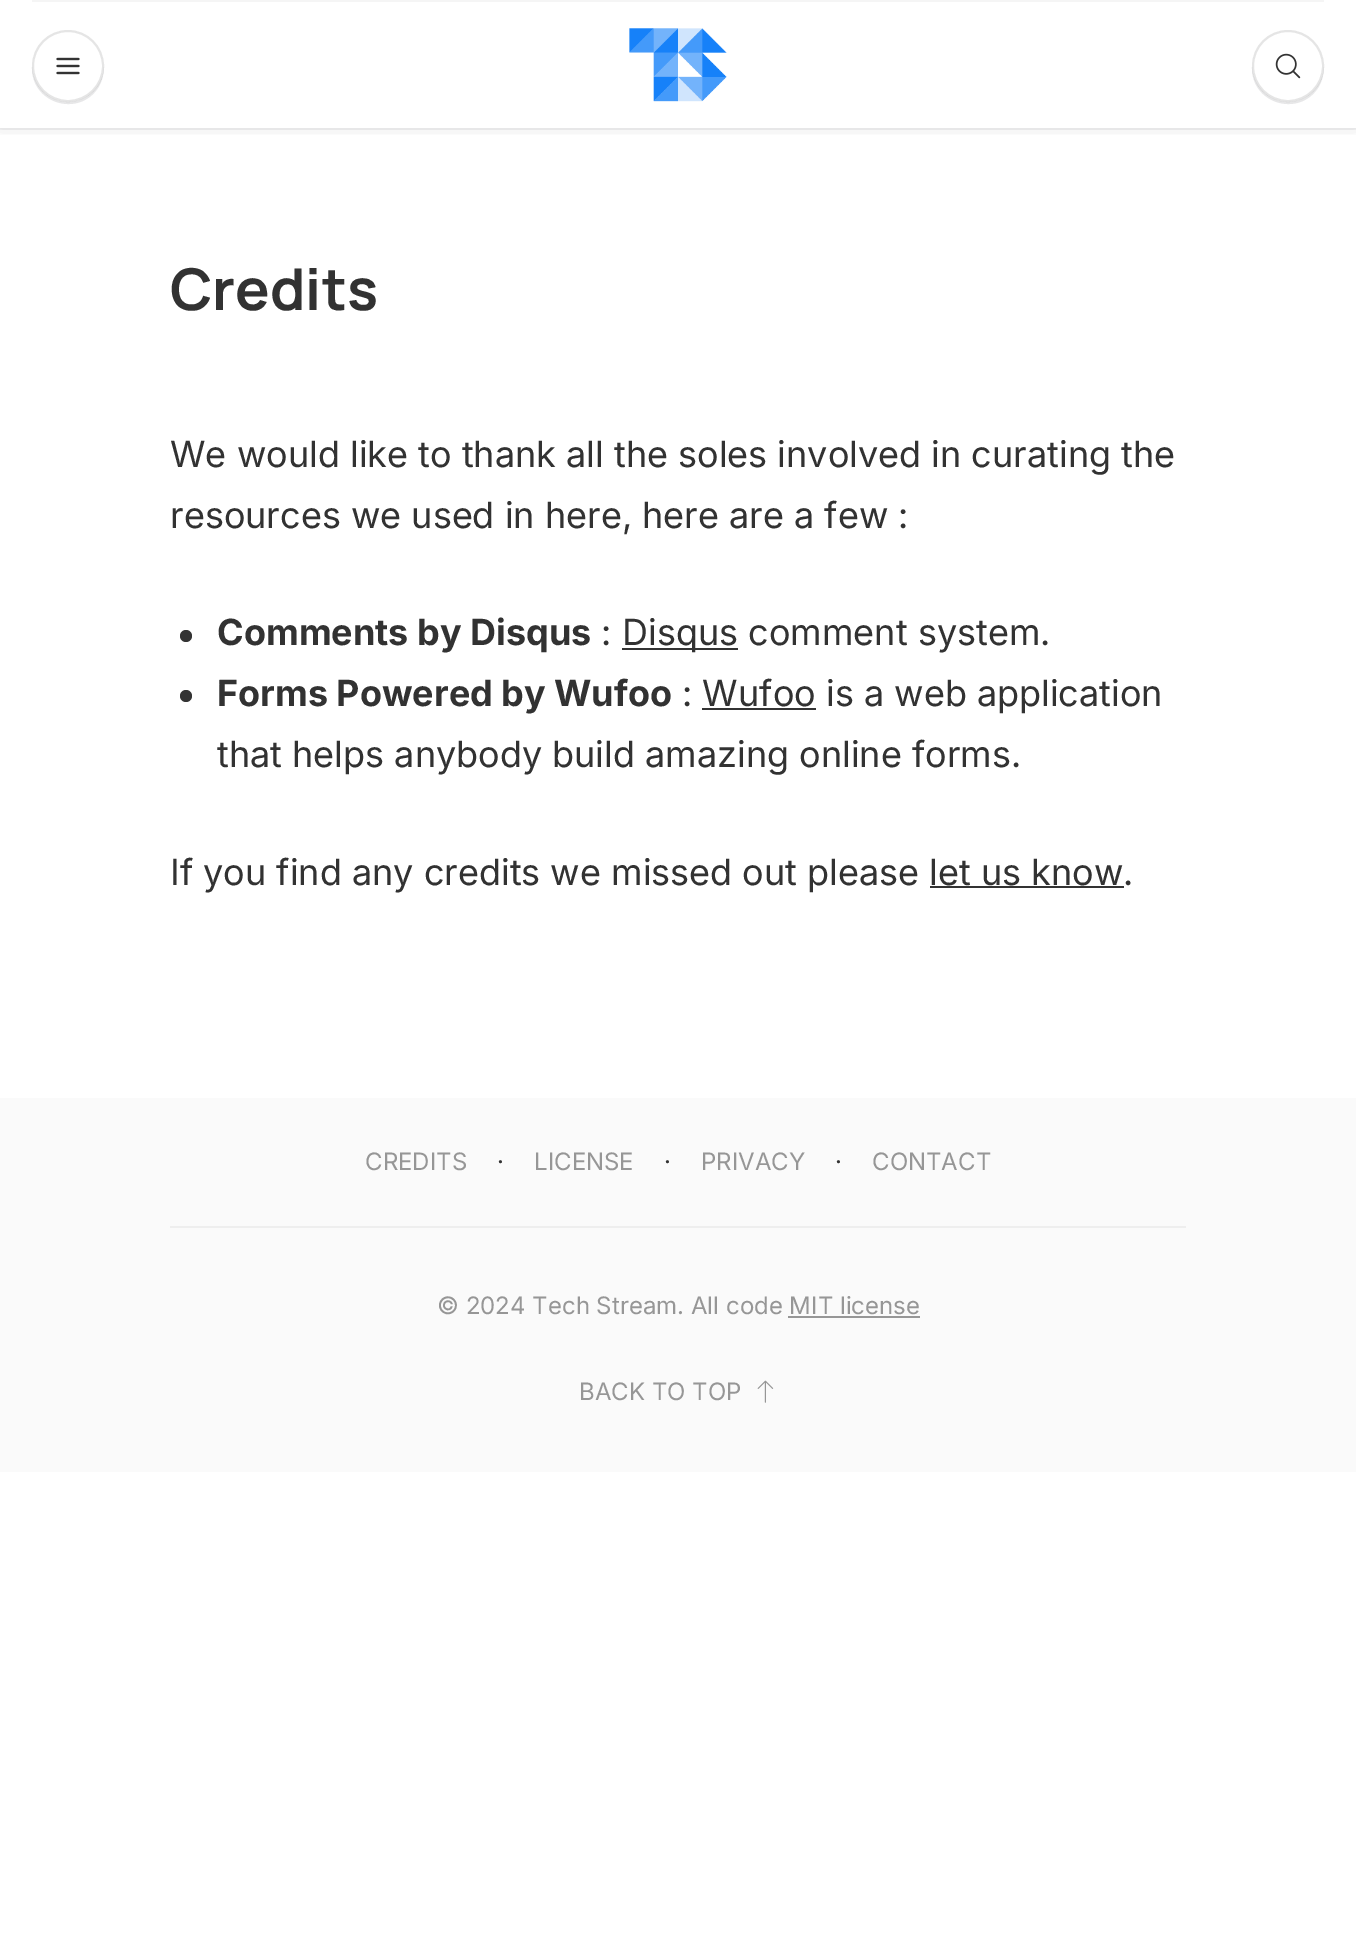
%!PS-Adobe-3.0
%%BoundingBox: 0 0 1356 1943
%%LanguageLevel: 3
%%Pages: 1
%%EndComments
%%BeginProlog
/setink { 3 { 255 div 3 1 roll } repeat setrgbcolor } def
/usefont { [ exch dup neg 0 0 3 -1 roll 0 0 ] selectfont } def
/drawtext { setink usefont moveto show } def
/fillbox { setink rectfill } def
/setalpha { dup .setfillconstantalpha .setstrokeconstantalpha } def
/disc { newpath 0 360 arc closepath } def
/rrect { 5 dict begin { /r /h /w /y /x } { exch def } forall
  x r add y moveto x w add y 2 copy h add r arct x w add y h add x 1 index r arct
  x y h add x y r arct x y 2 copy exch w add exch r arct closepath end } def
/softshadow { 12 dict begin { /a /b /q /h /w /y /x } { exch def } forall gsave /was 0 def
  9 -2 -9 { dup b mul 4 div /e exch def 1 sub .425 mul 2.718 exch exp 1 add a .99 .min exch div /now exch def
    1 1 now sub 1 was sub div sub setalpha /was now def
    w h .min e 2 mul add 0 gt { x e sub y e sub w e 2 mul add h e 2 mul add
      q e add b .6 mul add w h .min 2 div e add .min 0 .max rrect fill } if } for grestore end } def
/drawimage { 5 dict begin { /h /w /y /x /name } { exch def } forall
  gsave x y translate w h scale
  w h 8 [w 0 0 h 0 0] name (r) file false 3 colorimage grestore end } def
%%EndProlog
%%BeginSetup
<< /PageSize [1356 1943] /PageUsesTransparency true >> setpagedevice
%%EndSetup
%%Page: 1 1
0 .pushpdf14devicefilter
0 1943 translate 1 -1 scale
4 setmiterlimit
0 0 1356 1943 255 255 255 fillbox
gsave
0 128 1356 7 rectclip
17 17 26 setink
0 0 1356 128 0 8 0.1 softshadow
grestore
0.05 setalpha
0 128 1356 2 17 17 26 fillbox
1 setalpha
32 0 1292 2 245 245 245 fillbox
231 231 232 setink
32 67 moveto 31 103 78 118 98 88 curveto 102 82 104 74 104 67 curveto 103 86 88 102 68 102 curveto 48 102 33 86 32 67 curveto closepath fill
0.1 setalpha
0 0 0 setink
2 setlinewidth
68 66 35 disc stroke
1 setalpha
(assets/img1.rgb) 56 57 24 18 drawimage
(assets/img2.rgb) 629 28 98 74 drawimage
231 231 232 setink
1252 67 moveto 1251 103 1298 118 1318 88 curveto 1322 82 1324 74 1324 67 curveto 1323 86 1308 102 1288 102 curveto 1268 102 1253 86 1252 67 curveto closepath fill
0.1 setalpha
0 0 0 setink
1288 66 35 disc stroke
1 setalpha
(assets/img3.rgb) 1275 53 26 26 drawimage
(Credits) 170 310 /Manrope-Bold 57.5 50 50 50 drawtext
(We would like to thank all the soles involved in curating the) 170 467 /Inter-Regular 36 50 50 50 drawtext
(resources we used in here, here are a few :) 170 528 /Inter-Regular 36 50 50 50 drawtext
51 51 51 setink
186 636 6 disc fill
(Comments by Disqus) 217 645 /Inter-Bold 36 50 50 50 drawtext
(:) 601 645 /Inter-Regular 36 50 50 50 drawtext
622 648 116 2 51 51 51 fillbox
(Disqus comment system.) 622 645 /Inter-Regular 36 50 50 50 drawtext
51 51 51 setink
186 696 6 disc fill
(Forms Powered by Wufoo) 217 706 /Inter-Bold 36 50 50 50 drawtext
(: Wufoo is a web application) 682 706 /Inter-Regular 36 50 50 50 drawtext
702 708 114 2 51 51 51 fillbox
(that helps anybody build amazing online forms.) 217 767 /Inter-Regular 36 50 50 50 drawtext
(If you find any credits we missed out please let us know.) 170 885 /Inter-Regular 36 50 50 50 drawtext
930 886 194 2 51 51 51 fillbox
0 1098 1356 374 250 250 250 fillbox
170 1226 1016 2 238 238 238 fillbox
(CREDITS) 365 1170 /Inter-Regular 24 150 150 150 drawtext
(·) 497 1170 /Inter-Regular 24 50 50 50 drawtext
(LICENSE) 534 1170 /Inter-Regular 24 150 150 150 drawtext
(·) 664 1170 /Inter-Regular 24 50 50 50 drawtext
(PRIVACY) 701 1170 /Inter-Regular 24 150 150 150 drawtext
(·) 835 1170 /Inter-Regular 24 50 50 50 drawtext
(CONTACT) 872 1170 /Inter-Regular 24 150 150 150 drawtext
(© 2024 Tech Stream. All code MIT license) 437 1314 /Inter-Regular 24 150 150 150 drawtext
788 1316 132 2 150 150 150 fillbox
(BACK TO TOP) 579 1400 /Inter-Regular 24 150 150 150 drawtext
(assets/img4.rgb) 757 1380 17 23 drawimage
.poppdf14devicefilter showpage
%%EOF
